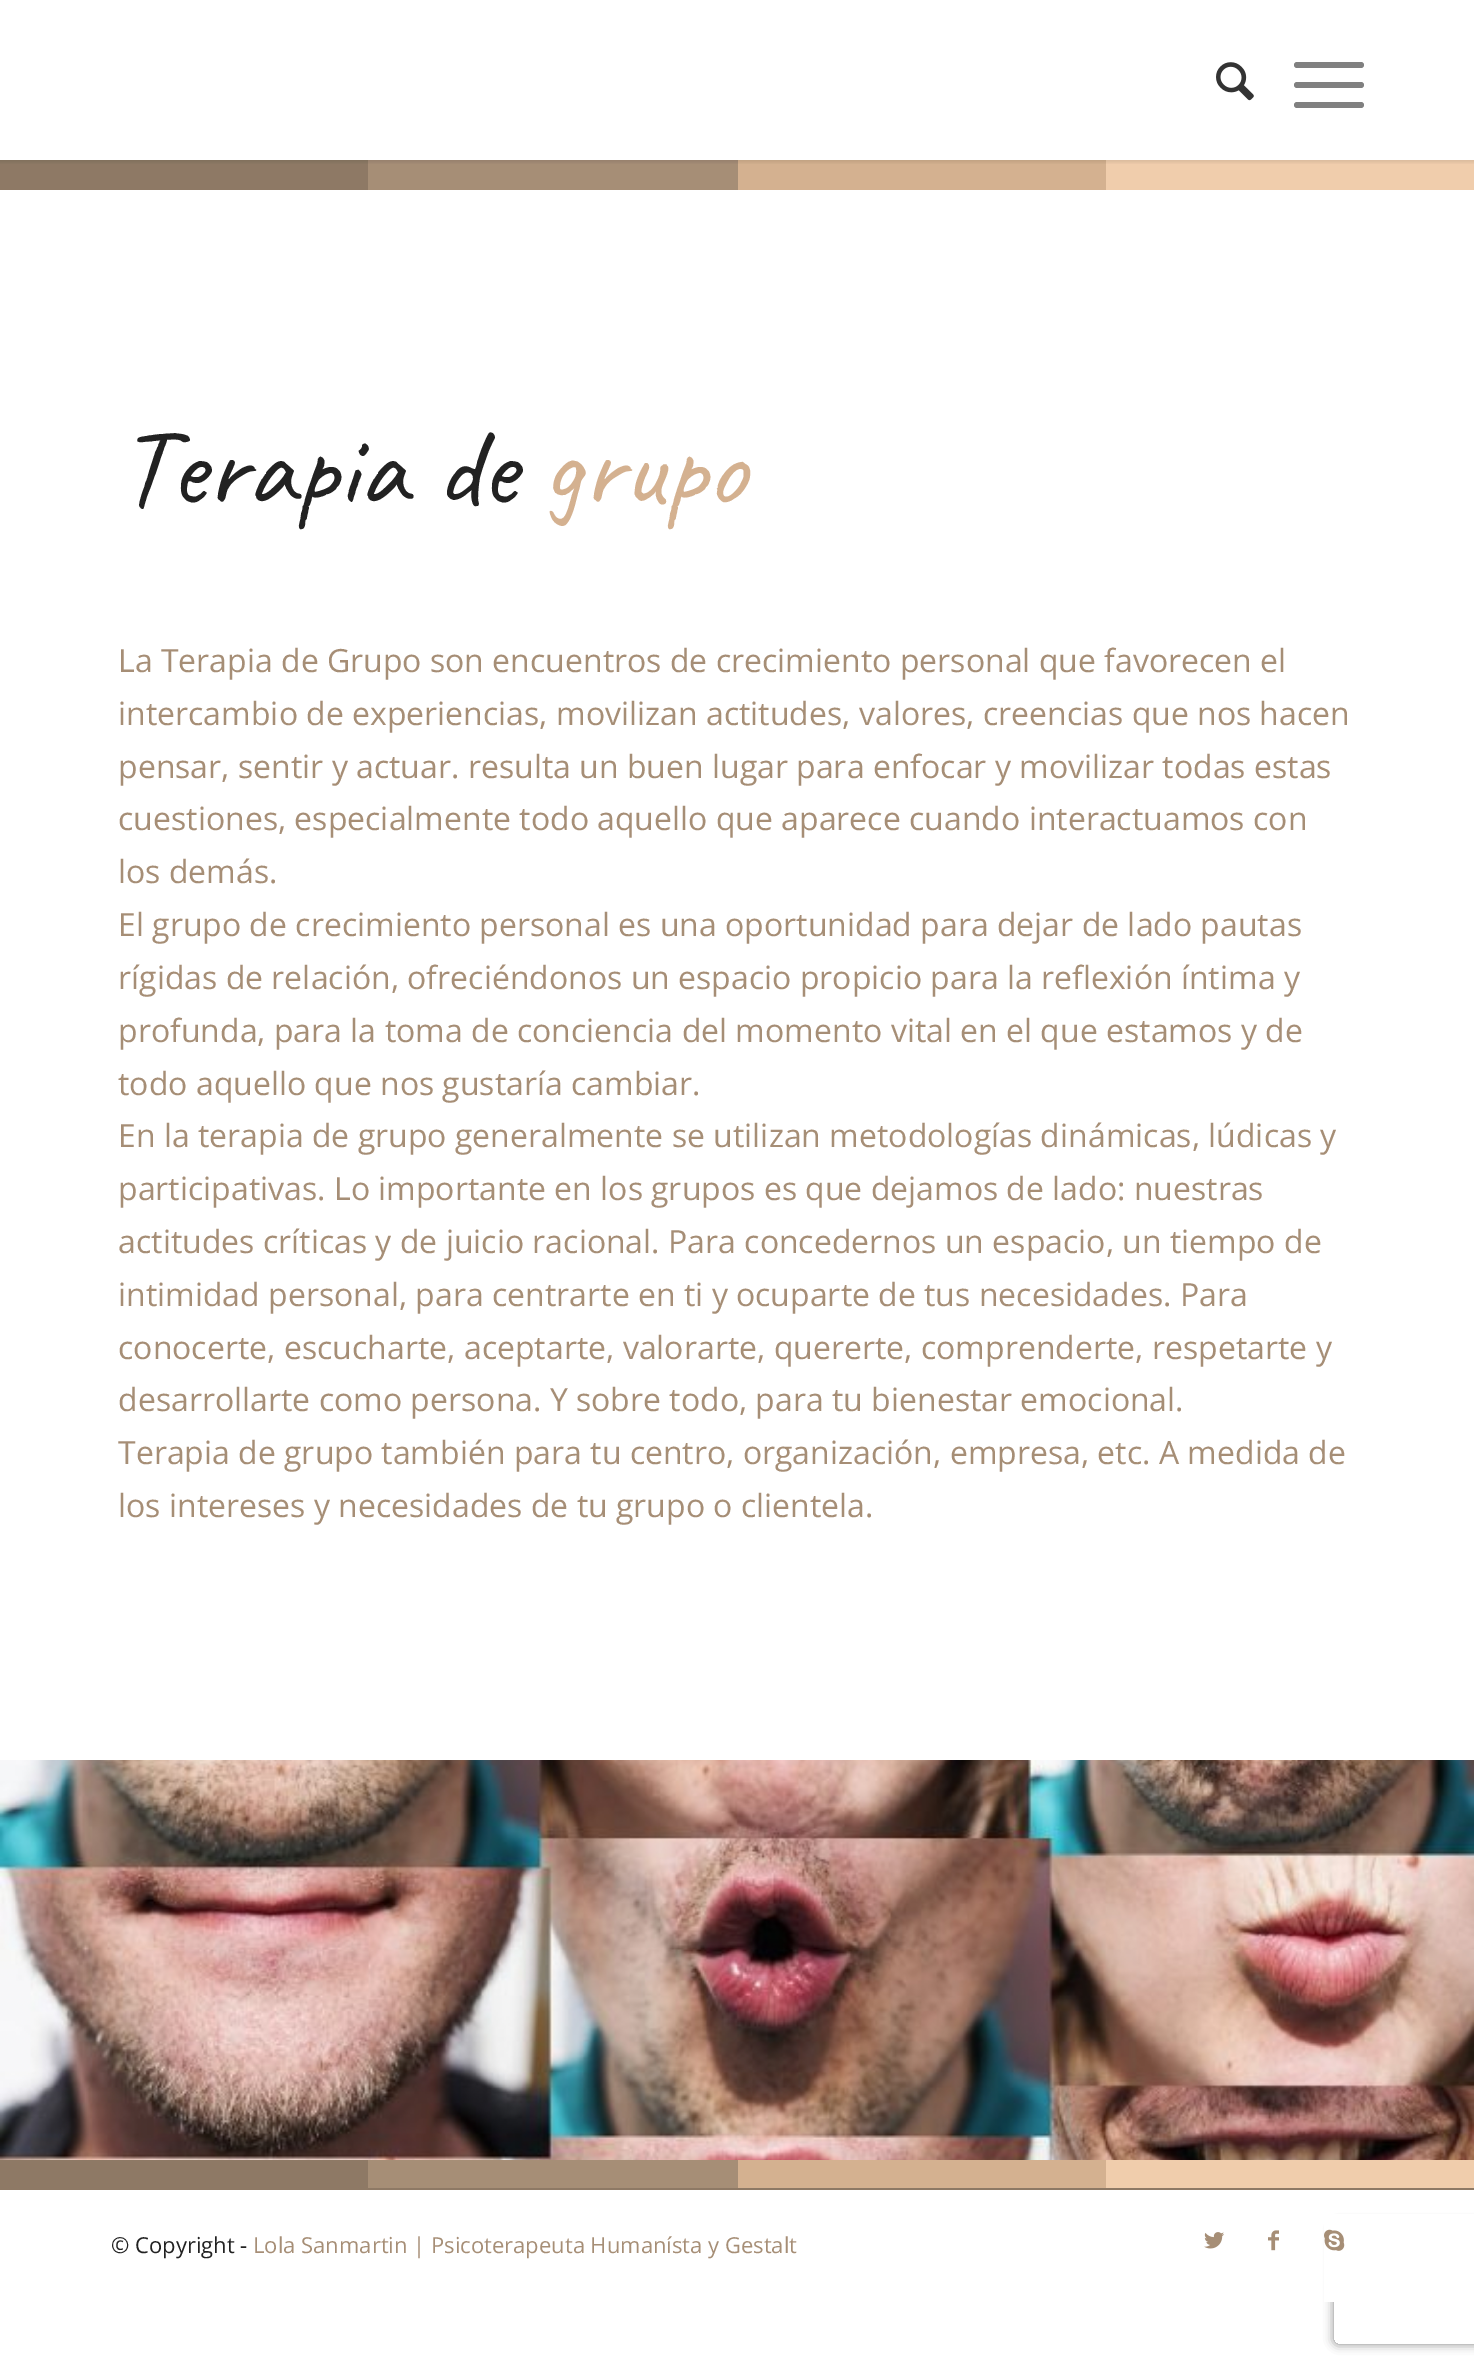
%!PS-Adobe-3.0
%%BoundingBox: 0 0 1474 2371
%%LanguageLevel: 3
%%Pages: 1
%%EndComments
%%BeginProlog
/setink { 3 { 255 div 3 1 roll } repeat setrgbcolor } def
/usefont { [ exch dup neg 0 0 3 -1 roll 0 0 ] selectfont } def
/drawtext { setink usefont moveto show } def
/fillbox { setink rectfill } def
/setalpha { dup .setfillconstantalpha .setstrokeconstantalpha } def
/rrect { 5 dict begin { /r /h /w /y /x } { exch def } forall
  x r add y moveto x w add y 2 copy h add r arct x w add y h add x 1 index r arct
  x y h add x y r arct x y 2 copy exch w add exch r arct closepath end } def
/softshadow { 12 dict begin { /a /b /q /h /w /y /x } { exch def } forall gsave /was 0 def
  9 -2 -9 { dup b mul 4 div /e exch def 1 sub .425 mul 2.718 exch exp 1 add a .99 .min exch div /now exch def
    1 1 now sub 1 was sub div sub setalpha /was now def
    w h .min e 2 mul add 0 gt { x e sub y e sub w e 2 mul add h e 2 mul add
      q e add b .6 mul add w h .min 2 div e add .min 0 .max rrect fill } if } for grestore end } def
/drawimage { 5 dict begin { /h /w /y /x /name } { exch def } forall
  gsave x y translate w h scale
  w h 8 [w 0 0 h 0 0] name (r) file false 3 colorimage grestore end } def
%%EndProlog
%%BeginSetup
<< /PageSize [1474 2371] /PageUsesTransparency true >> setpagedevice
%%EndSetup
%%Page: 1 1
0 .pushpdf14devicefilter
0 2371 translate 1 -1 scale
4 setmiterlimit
0 0 1474 2371 255 255 255 fillbox
0 160 368 30 142 121 101 fillbox
368 160 370 30 166 142 118 fillbox
738 160 368 30 212 177 144 fillbox
1106 160 368 30 240 205 172 fillbox
gsave
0 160 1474 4 rectclip
0 0 0 setink
-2 -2 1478 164 0 2 0.1 softshadow
grestore
(assets/img1.rgb) 1216 62 38 39 drawimage
128 128 128 setink
1294 82 70 6 3 rrect fill
1294 62 70 6 3 rrect fill
1294 102 70 6 3 rrect fill
/Caveat-Regular 112 usefont
34 34 34 setink
118 504 moveto 2 0 32 (Terapia de) widthshow
(grupo) 542 504 /Caveat-Regular 112 212 177 144 drawtext
(La Terapia de Grupo son encuentros de crecimiento personal que favorecen el) 118 672 /OpenSans-Regular 32 166 142 118 drawtext
(intercambio de experiencias, movilizan actitudes, valores, creencias que nos hacen) 118 725 /OpenSans-Regular 32 166 142 118 drawtext
(pensar, sentir y actuar. resulta un buen lugar para enfocar y movilizar todas estas) 118 778 /OpenSans-Regular 32 166 142 118 drawtext
(cuestiones, especialmente todo aquello que aparece cuando interactuamos con) 118 830 /OpenSans-Regular 32 166 142 118 drawtext
(los demás.) 118 883 /OpenSans-Regular 32 166 142 118 drawtext
(El grupo de crecimiento personal es una oportunidad para dejar de lado pautas) 118 936 /OpenSans-Regular 32 166 142 118 drawtext
(rígidas de relación, ofreciéndonos un espacio propicio para la reflexión íntima y) 118 989 /OpenSans-Regular 32 166 142 118 drawtext
(profunda, para la toma de conciencia del momento vital en el que estamos y de) 118 1042 /OpenSans-Regular 32 166 142 118 drawtext
(todo aquello que nos gustaría cambiar.) 118 1095 /OpenSans-Regular 32 166 142 118 drawtext
(En la terapia de grupo generalmente se utilizan metodologías dinámicas, lúdicas y) 118 1147 /OpenSans-Regular 32 166 142 118 drawtext
(participativas. Lo importante en los grupos es que dejamos de lado: nuestras) 118 1200 /OpenSans-Regular 32 166 142 118 drawtext
(actitudes críticas y de juicio racional. Para concedernos un espacio, un tiempo de) 118 1253 /OpenSans-Regular 32 166 142 118 drawtext
(intimidad personal, para centrarte en ti y ocuparte de tus necesidades. Para) 118 1306 /OpenSans-Regular 32 166 142 118 drawtext
(conocerte, escucharte, aceptarte, valorarte, quererte, comprenderte, respetarte y) 118 1359 /OpenSans-Regular 32 166 142 118 drawtext
(desarrollarte como persona. Y sobre todo, para tu bienestar emocional.) 118 1411 /OpenSans-Regular 32 166 142 118 drawtext
(Terapia de grupo también para tu centro, organización, empresa, etc. A medida de) 118 1464 /OpenSans-Regular 32 166 142 118 drawtext
(los intereses y necesidades de tu grupo o clientela.) 118 1517 /OpenSans-Regular 32 166 142 118 drawtext
(assets/img2.rgb) 0 1760 1474 400 drawimage
0 2160 368 28 142 121 101 fillbox
368 2160 370 28 166 142 118 fillbox
738 2160 368 28 212 177 144 fillbox
1106 2160 368 28 240 205 172 fillbox
gsave
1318 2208 moveto 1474 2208 lineto 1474 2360 lineto 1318 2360 lineto closepath 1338 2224 moveto 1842 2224 lineto 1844 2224 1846 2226 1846 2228 curveto 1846 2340 lineto 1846 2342 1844 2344 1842 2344 curveto 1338 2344 lineto 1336 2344 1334 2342 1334 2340 curveto 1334 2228 lineto 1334 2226 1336 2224 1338 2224 curveto closepath eoclip newpath
128 128 128 setink
1334 2224 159 120 4 5 1 softshadow
grestore
1324 2214 150 88 255 255 255 fillbox
0 2188 1474 2 142 121 101 fillbox
(© Copyright -) 111 2253 /OpenSans-Regular 22 34 34 34 drawtext
(Lola Sanmartin | Psicoterapeuta Humanísta y Gestalt) 253 2253 /OpenSans-Regular 22 166 142 118 drawtext
(assets/img3.rgb) 1204 2232 20 17 drawimage
(assets/img4.rgb) 1268 2230 11 21 drawimage
(assets/img5.rgb) 1324 2229 21 22 drawimage
.poppdf14devicefilter showpage
%%EOF
